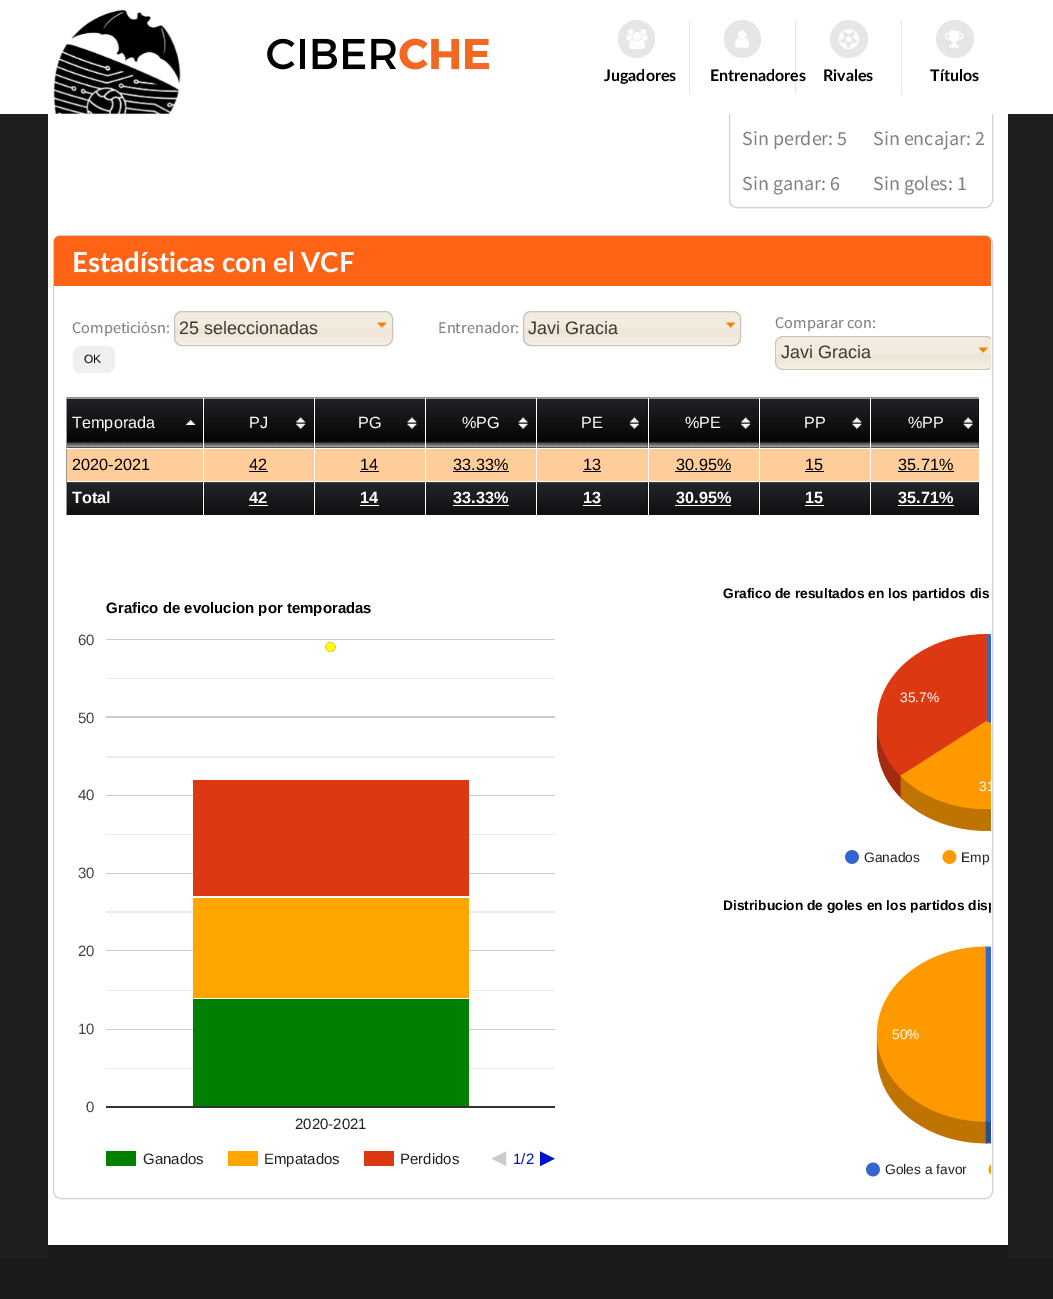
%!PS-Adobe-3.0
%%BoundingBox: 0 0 1053 1299
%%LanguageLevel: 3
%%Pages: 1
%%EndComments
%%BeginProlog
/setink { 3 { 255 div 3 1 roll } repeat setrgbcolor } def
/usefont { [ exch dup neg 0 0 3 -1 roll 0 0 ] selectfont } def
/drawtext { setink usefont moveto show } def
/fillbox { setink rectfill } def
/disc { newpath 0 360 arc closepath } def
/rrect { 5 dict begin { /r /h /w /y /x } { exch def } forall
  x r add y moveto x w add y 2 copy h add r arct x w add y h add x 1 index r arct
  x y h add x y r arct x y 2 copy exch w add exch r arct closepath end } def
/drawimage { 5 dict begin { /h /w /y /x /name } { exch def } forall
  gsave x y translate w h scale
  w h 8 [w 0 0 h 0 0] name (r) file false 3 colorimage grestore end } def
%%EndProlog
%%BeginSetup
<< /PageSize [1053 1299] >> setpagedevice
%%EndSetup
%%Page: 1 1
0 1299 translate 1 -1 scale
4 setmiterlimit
0 0 1053 1299 31 31 31 fillbox
48 114 960 1131 255 255 255 fillbox
204 209 217 setink
729.5 -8.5 263 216 7.5 rrect stroke
0 0 1053 114 255 255 255 fillbox
(assets/img1.rgb) 53 10 128 105 drawimage
(assets/img2.rgb) 267 38 223 32 drawimage
689 20 1 74 230 230 230 fillbox
618 20 37 38 18.5 rrect fill
(assets/img3.rgb) 626 29 22 20 drawimage
(Jugadores) 604 81 /Lato-Bold 16 0 0 0 drawtext
795 20 1 74 230 230 230 fillbox
724 20 37 38 18.5 rrect fill
(assets/img4.rgb) 735 30 15 18 drawimage
(Entrenadores) 710 81 /Lato-Bold 16 0 0 0 drawtext
901 20 1 74 230 230 230 fillbox
849 39 19 disc fill
(assets/img5.rgb) 838 29 21 20 drawimage
(Rivales) 823 81 /Lato-Bold 16 0 0 0 drawtext
230 230 230 setink
955 39 19 disc fill
(assets/img6.rgb) 945 30 19 18 drawimage
(Títulos) 930 81 /Lato-Bold 16 0 0 0 drawtext
48 1245 960 13 26 26 26 fillbox
(Sin perder: 5) 742 145 /SourceSansPro-Regular 20 128 128 128 drawtext
(Sin ganar: 6) 742 190 /SourceSansPro-Regular 20 128 128 128 drawtext
(Sin encajar: 2) 873 145 /SourceSansPro-Regular 20 128 128 128 drawtext
(Sin goles: 1) 873 190 /SourceSansPro-Regular 20 128 128 128 drawtext
204 209 217 setink
53.5 235.5 939 963 7.5 rrect stroke
255 99 21 setink
60 236 moveto 985 236 lineto 988.5 236 991 238.5 991 242 curveto 991 286 lineto 54 286 lineto 54 242 lineto 54 238.5 56.5 236 60 236 curveto closepath fill
(Estadísticas con el VCF) 72 272 /Lato-Bold 27.5 255 255 255 drawtext
(Competiciósn:) 72 333 /SourceSansPro-Regular 16.25 128 128 128 drawtext
(assets/img7.rgb) 174 311 218 35 drawimage
205 195 183 setink
174.5 311.5 218 34 7.5 rrect stroke
(25 seleccionadas) 179 334 /LiberationSans-Regular 18 63 55 49 drawtext
(assets/img8.rgb) 377 322 10 6 drawimage
239 239 239 setink
73 346 42 27 8 rrect fill
(OK) 84 363 /LiberationSans-Regular 12 0 0 0 drawtext
(Entrenador:) 438 333 /SourceSansPro-Regular 16.25 128 128 128 drawtext
(assets/img9.rgb) 522 311 219 35 drawimage
205 195 183 setink
523.5 311.5 217 34 7.5 rrect stroke
(Javi Gracia) 528 334 /LiberationSans-Regular 18 63 55 49 drawtext
(assets/img10.rgb) 726 322 10 6 drawimage
(Comparar con:) 775 328 /SourceSansPro-Regular 16.25 128 128 128 drawtext
(assets/img11.rgb) 775 336 217 34 drawimage
205 195 183 setink
783 336 moveto 779 336 775 340 775 344 curveto 775 362 lineto 775 366 779 370 783 370 curveto 986 370 lineto 988 370 990 369 991 368 curveto 991 367 lineto 990 368 988 369 986 369 curveto 783 369 lineto 779 369 776 366 776 362 curveto 776 344 lineto 776 340 779 337 783 337 curveto 986 337 lineto 988 337 990 338 991 339 curveto 991 338 lineto 990 337 988 336 986 336 curveto closepath fill
(Javi Gracia) 781 358 /LiberationSans-Regular 18 63 55 49 drawtext
(assets/img12.rgb) 978 347 10 6 drawimage
67 399 136 49 0 0 0 fillbox
(assets/img13.rgb) 66 397 137 51 drawimage
204 399 110 49 0 0 0 fillbox
(assets/img14.rgb) 202 397 112 51 drawimage
315 447 110 1 0 0 0 fillbox
(assets/img15.rgb) 313 397 112 51 drawimage
426 447 110 1 0 0 0 fillbox
(assets/img16.rgb) 425 397 112 51 drawimage
537 399 111 49 0 0 0 fillbox
(assets/img17.rgb) 536 397 112 51 drawimage
649 399 110 49 0 0 0 fillbox
(assets/img18.rgb) 647 397 112 51 drawimage
760 447 110 1 0 0 0 fillbox
(assets/img15.rgb) 758 397 112 51 drawimage
871 399 108 49 0 0 0 fillbox
(assets/img19.rgb) 870 397 109 51 drawimage
66 398 913 1 151 151 151 fillbox
66 398 1 118 151 151 151 fillbox
203 398 1 51 255 255 255 fillbox
66 448 1 1 255 255 255 fillbox
(Temporada) 72 428 /LiberationSans-Regular 16.25 255 255 255 drawtext
314 398 1 51 255 255 255 fillbox
(PJ) 249 428 /LiberationSans-Regular 16.25 255 255 255 drawtext
425 398 1 51 255 255 255 fillbox
(PG) 358 428 /LiberationSans-Regular 16.25 255 255 255 drawtext
536 398 1 51 255 255 255 fillbox
(%PG) 462 428 /LiberationSans-Regular 16.25 255 255 255 drawtext
648 398 1 51 255 255 255 fillbox
(PE) 581 428 /LiberationSans-Regular 16.25 255 255 255 drawtext
759 398 1 51 255 255 255 fillbox
(%PE) 685 428 /LiberationSans-Regular 16.25 255 255 255 drawtext
870 398 1 51 255 255 255 fillbox
(PP) 804 428 /LiberationSans-Regular 16.25 255 255 255 drawtext
(%PP) 908 428 /LiberationSans-Regular 16.25 255 255 255 drawtext
67 449 136 32 255 205 154 fillbox
66 481 1 1 255 255 255 fillbox
66 481 1 2 151 151 151 fillbox
(2020-2021) 72 470 /LiberationSans-Regular 16.25 0 0 0 drawtext
204 449 110 32 255 205 154 fillbox
(42) 249 470 /LiberationSans-Regular 16.25 0 0 0 drawtext
249 471 19 1 0 0 0 fillbox
315 449 110 32 255 205 154 fillbox
(14) 360 470 /LiberationSans-Regular 16.25 0 0 0 drawtext
360 471 19 1 0 0 0 fillbox
426 449 110 32 255 205 154 fillbox
(33.33%) 453 470 /LiberationSans-Regular 16.25 0 0 0 drawtext
453 471 56 1 0 0 0 fillbox
537 449 111 32 255 205 154 fillbox
(13) 583 470 /LiberationSans-Regular 16.25 0 0 0 drawtext
583 471 18 1 0 0 0 fillbox
649 449 110 32 255 205 154 fillbox
(30.95%) 676 470 /LiberationSans-Regular 16.25 0 0 0 drawtext
675 471 56 1 0 0 0 fillbox
760 449 110 32 255 205 154 fillbox
(15) 805 470 /LiberationSans-Regular 16.25 0 0 0 drawtext
805 471 19 1 0 0 0 fillbox
871 449 108 32 255 205 154 fillbox
(35.71%) 898 470 /LiberationSans-Regular 16.25 0 0 0 drawtext
898 471 56 1 0 0 0 fillbox
(assets/img20.rgb) 67 482 136 33 drawimage
(assets/img21.rgb) 202 482 112 33 drawimage
203 481 1 35 255 255 255 fillbox
66 515 1 1 255 255 255 fillbox
(Total) 72 503 /LiberationSans-Bold 16.25 255 255 255 drawtext
(assets/img22.rgb) 313 482 112 33 drawimage
314 481 1 35 255 255 255 fillbox
(42) 249 503 /LiberationSans-Bold 16.25 255 255 255 drawtext
249 505 19 1 255 255 255 fillbox
(14) 360 503 /LiberationSans-Bold 16.25 255 255 255 drawtext
360 505 19 1 255 255 255 fillbox
(assets/img23.rgb) 426 482 110 33 drawimage
(33.33%) 453 503 /LiberationSans-Bold 16.25 255 255 255 drawtext
453 505 56 1 255 255 255 fillbox
(assets/img24.rgb) 537 482 111 33 drawimage
(assets/img21.rgb) 647 482 112 33 drawimage
648 481 1 35 255 255 255 fillbox
(13) 583 503 /LiberationSans-Bold 16.25 255 255 255 drawtext
583 505 18 1 255 255 255 fillbox
(assets/img22.rgb) 758 482 112 33 drawimage
759 481 1 35 255 255 255 fillbox
(30.95%) 676 503 /LiberationSans-Bold 16.25 255 255 255 drawtext
675 505 56 1 255 255 255 fillbox
(15) 805 503 /LiberationSans-Bold 16.25 255 255 255 drawtext
805 505 19 1 255 255 255 fillbox
(assets/img25.rgb) 871 482 108 33 drawimage
(35.71%) 898 503 /LiberationSans-Bold 16.25 255 255 255 drawtext
898 505 56 1 255 255 255 fillbox
(Grafico de evolucion por temporadas) 106 613 /LiberationSans-Bold 15 0 0 0 drawtext
(60) 78 645 /LiberationSans-Regular 15 68 68 68 drawtext
(assets/img26.rgb) 106 639 449 528 drawimage
(50) 78 723 /LiberationSans-Regular 15 68 68 68 drawtext
(40) 78 800 /LiberationSans-Regular 15 68 68 68 drawtext
(30) 78 878 /LiberationSans-Regular 15 68 68 68 drawtext
(20) 78 956 /LiberationSans-Regular 15 68 68 68 drawtext
(10) 78 1034 /LiberationSans-Regular 15 68 68 68 drawtext
(0) 86 1112 /LiberationSans-Regular 15 68 68 68 drawtext
(2020-2021) 295 1129 /LiberationSans-Regular 15 34 34 34 drawtext
(Ganados) 143 1164 /LiberationSans-Regular 15 34 34 34 drawtext
(Empatados) 264 1164 /LiberationSans-Regular 15 34 34 34 drawtext
(Perdidos) 400 1164 /LiberationSans-Regular 15 34 34 34 drawtext
(1/2) 513 1164 /LiberationSans-Regular 15 0 17 204 drawtext
(Grafico de resultados en los partidos dis) 723 598 /LiberationSans-Bold 13.75 0 0 0 drawtext
(assets/img27.rgb) 845 634 146 230 drawimage
(35.7%) 900 702 /LiberationSans-Regular 13.75 255 255 255 drawtext
gsave
54 236 937 962 6 rrect clip newpath
(31) 979 791 /LiberationSans-Regular 13.75 255 255 255 drawtext
grestore
(Ganados) 864 862 /LiberationSans-Regular 13.75 34 34 34 drawtext
(Emp) 961 862 /LiberationSans-Regular 13.75 34 34 34 drawtext
gsave
54 236 937 962 6 rrect clip newpath
(Distribucion de goles en los partidos disp) 723 910 /LiberationSans-Bold 13.75 0 0 0 drawtext
grestore
(assets/img28.rgb) 866 946 125 231 drawimage
(50%) 892 1039 /LiberationSans-Regular 13.75 255 255 255 drawtext
(Goles a favor) 885 1174 /LiberationSans-Regular 13.75 34 34 34 drawtext
0 1258 1053 41 26 26 26 fillbox
showpage
%%EOF
